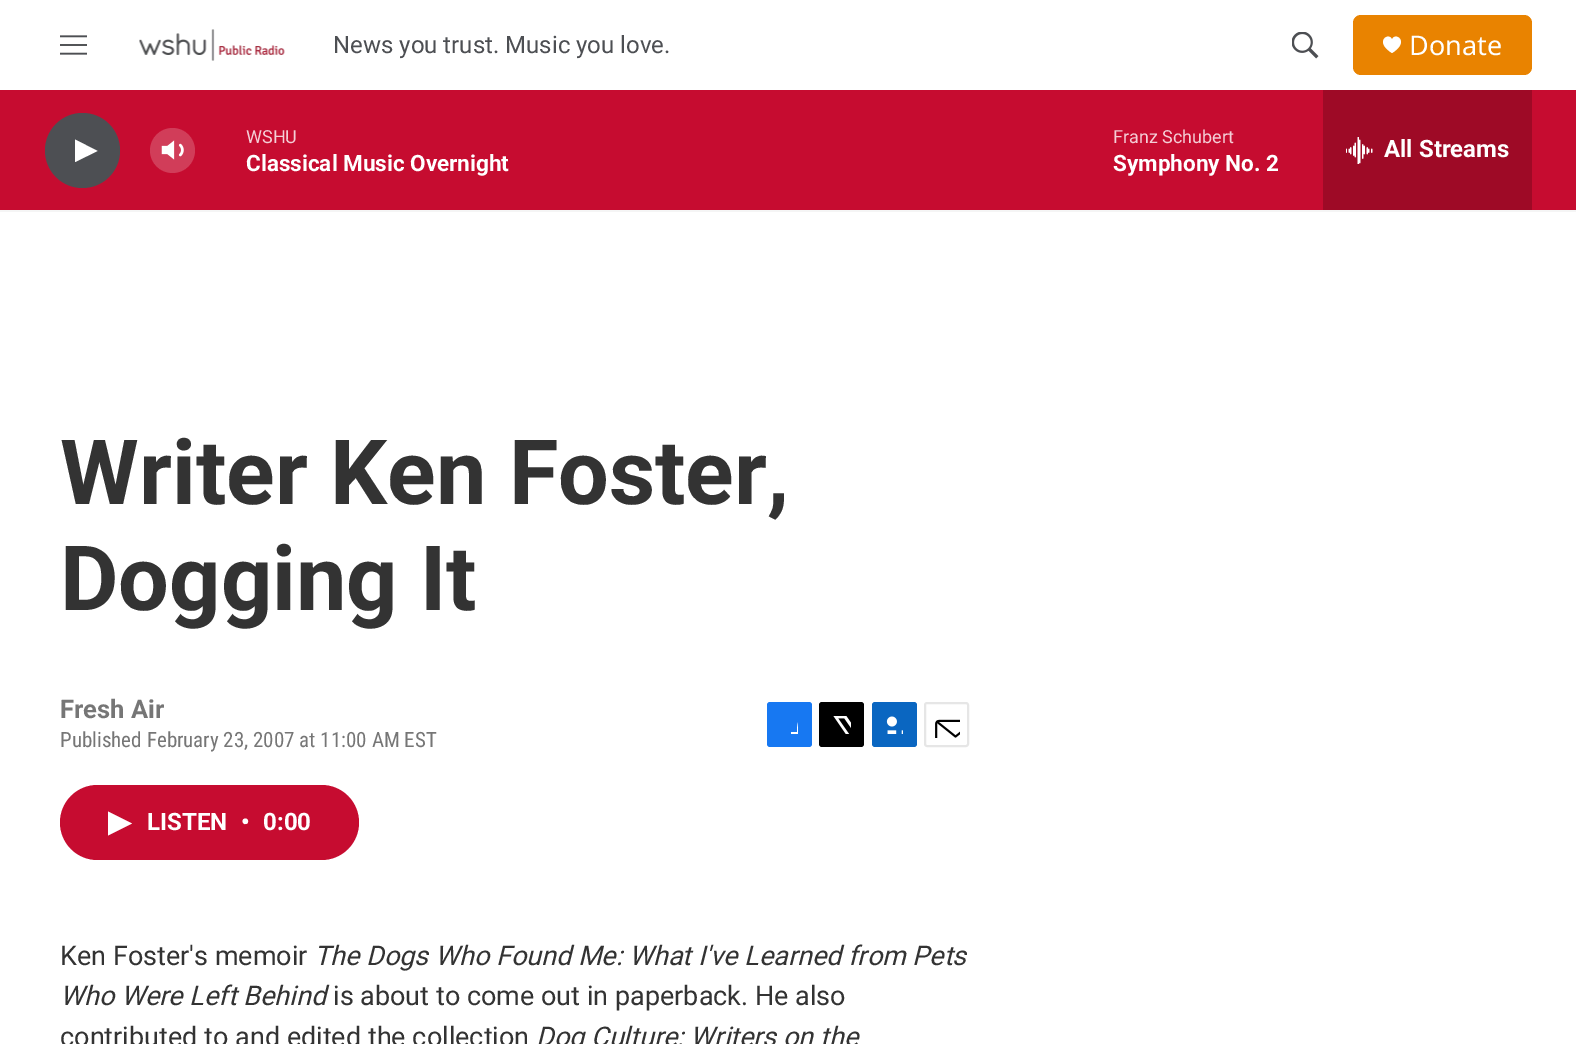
%!PS-Adobe-3.0
%%BoundingBox: 0 0 1576 1044
%%LanguageLevel: 3
%%Pages: 1
%%EndComments
%%BeginProlog
/setink { 3 { 255 div 3 1 roll } repeat setrgbcolor } def
/usefont { [ exch dup neg 0 0 3 -1 roll 0 0 ] selectfont } def
/drawtext { setink usefont moveto show } def
/fillbox { setink rectfill } def
/setalpha { dup .setfillconstantalpha .setstrokeconstantalpha } def
/disc { newpath 0 360 arc closepath } def
/rrect { 5 dict begin { /r /h /w /y /x } { exch def } forall
  x r add y moveto x w add y 2 copy h add r arct x w add y h add x 1 index r arct
  x y h add x y r arct x y 2 copy exch w add exch r arct closepath end } def
/drawimage { 5 dict begin { /h /w /y /x /name } { exch def } forall
  gsave x y translate w h scale
  w h 8 [w 0 0 h 0 0] name (r) file false 3 colorimage grestore end } def
%%EndProlog
%%BeginSetup
<< /PageSize [1576 1044] /PageUsesTransparency true >> setpagedevice
%%EndSetup
%%Page: 1 1
0 .pushpdf14devicefilter
0 1044 translate 1 -1 scale
4 setmiterlimit
0 0 1576 1044 255 255 255 fillbox
0 210 1576 2 245 245 245 fillbox
(assets/img1.rgb) 60 35 27 20 drawimage
(assets/img2.rgb) 139 29 146 32 drawimage
(News you trust. Music you love.) 333 53 /Roboto-Regular 24 77 79 83 drawtext
(assets/img3.rgb) 1292 32 27 27 drawimage
233 131 0 setink
1353 15 179 60 8 rrect fill
255 255 255 setink
1392 39.5 moveto 1389 31.5 1373.5 41.5 1392 53 curveto 1410.5 41.5 1395 31.5 1392 39.5 curveto closepath fill
(Donate) 1409 55 /NotoSans-Regular 27 255 255 255 drawtext
0 90 1576 120 198 12 48 fillbox
77 79 83 setink
82.5 150.5 37.5 disc fill
255 255 255 setink
75 139.5 moveto 97.5 151 lineto 75 162 lineto closepath fill
(assets/img4.rgb) 161 140 23 20 drawimage
0.2 setalpha
172.5 150.5 22.5 disc fill
1 setalpha
(WSHU) 246 143 /Roboto-Regular 18 244 206 214 drawtext
(Classical Music Overnight) 246 171 /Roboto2-Bold 22.5 255 255 255 drawtext
(Franz Schubert) 1113 143 /Roboto-Regular 18 244 206 214 drawtext
(Symphony No. 2) 1113 171 /Roboto2-Bold 22.5 255 255 255 drawtext
1323 90 209 120 158 10 38 fillbox
(assets/img5.rgb) 1346 137 27 27 drawimage
(All Streams) 1384 157 /Roboto2-Bold 24 255 255 255 drawtext
(Writer Ken Foster,) 60 504 /Roboto-Bold 90 51 51 51 drawtext
(Dogging It) 60 610 /Roboto-Bold 90 51 51 51 drawtext
(Fresh Air) 60 718 /Roboto-Bold 25.5 118 118 118 drawtext
(Published February 23, 2007 at 11:00 AM EST) 60 747 /RobotoCondensed-Regular 21 118 118 118 drawtext
23 120 242 setink
767 702 45 45 3 rrect fill
gsave
780 716 18 18 rectclip
255 255 255 setink
805 747 moveto 797 747 lineto 797 740 lineto 791 740 lineto 791 732 lineto 797 732 lineto 797 720.5 799 714.5 812 716 curveto 812 723 lineto 804 723 805 725.5 805 732 curveto 812 732 lineto 811 740 lineto 805 740 lineto closepath fill
grestore
0 0 0 setink
819 702 45 45 3 rrect fill
(assets/img6.rgb) 833 716 18 18 drawimage
10 102 193 setink
872 702 45 45 3 rrect fill
(assets/img7.rgb) 886 716 17 18 drawimage
230 230 230 setink
2 setlinewidth
925 703 43 43 2 rrect stroke
(assets/img8.rgb) 935 719 25 19 drawimage
198 12 48 setink
60 785 299 75 37.5 rrect fill
255 255 255 setink
108 811.5 moveto 132 823.5 lineto 108 835.5 lineto closepath fill
(LISTEN) 147 830 /Roboto2-Bold 24 255 255 255 drawtext
(•) 241 830 /Roboto2-Bold 24 255 255 255 drawtext
(0:00) 263 830 /Roboto2-Bold 24 255 255 255 drawtext
(Ken Foster's memoir) 60 965 /Roboto-Regular 27 51 51 51 drawtext
(The Dogs Who Found Me: What I've Learned from Pets) 314 965 /Roboto-Italic 27 51 51 51 drawtext
(Who Were Left Behind) 60 1005 /Roboto-Italic 27 51 51 51 drawtext
(is about to come out in paperback. He also) 333 1005 /Roboto-Regular 27 51 51 51 drawtext
(contributed to and edited the collection) 60 1046 /Roboto-Regular 27 51 51 51 drawtext
(Dog Culture: Writers on the) 536 1046 /Roboto-Italic 27 51 51 51 drawtext
.poppdf14devicefilter showpage
%%EOF
